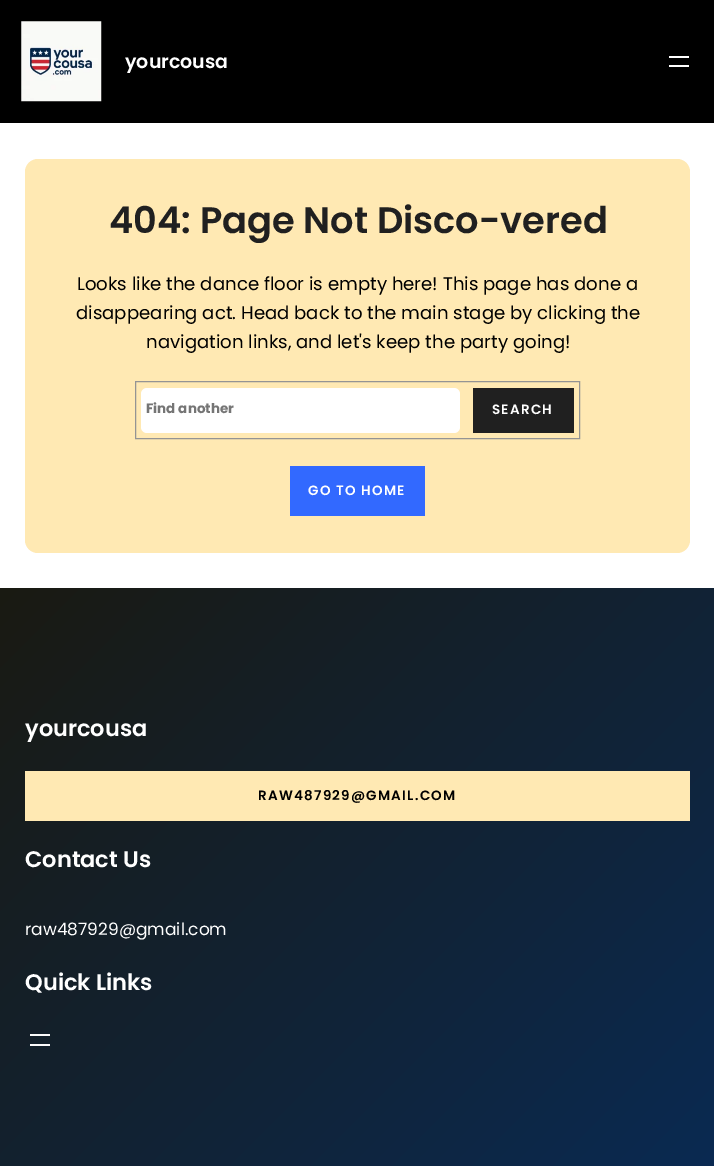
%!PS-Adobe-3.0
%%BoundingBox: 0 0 714 1166
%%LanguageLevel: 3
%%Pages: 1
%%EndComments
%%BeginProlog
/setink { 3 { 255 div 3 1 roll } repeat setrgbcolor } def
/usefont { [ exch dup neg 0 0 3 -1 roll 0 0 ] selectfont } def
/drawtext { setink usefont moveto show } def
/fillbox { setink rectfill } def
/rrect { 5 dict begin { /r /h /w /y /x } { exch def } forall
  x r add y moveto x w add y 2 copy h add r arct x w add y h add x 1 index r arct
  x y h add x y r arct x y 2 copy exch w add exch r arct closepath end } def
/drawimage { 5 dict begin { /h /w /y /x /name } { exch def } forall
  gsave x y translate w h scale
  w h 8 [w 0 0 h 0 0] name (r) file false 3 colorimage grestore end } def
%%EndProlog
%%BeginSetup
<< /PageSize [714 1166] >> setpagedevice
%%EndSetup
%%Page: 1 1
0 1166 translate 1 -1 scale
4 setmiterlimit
0 0 714 1166 255 255 255 fillbox
0 0 714 123 0 0 0 fillbox
(assets/img1.rgb) 21 21 81 81 drawimage
(yourcousa) 125 68 /Poppins-SemiBold 19 255 255 255 drawtext
669 56 20 2 255 255 255 fillbox
669 65 20 2 255 255 255 fillbox
255 233 179 setink
25 159 665 394 13 rrect fill
(404: Page Not Disco-vered) 109 233 /Poppins-SemiBold 36.75 32 32 32 drawtext
(Looks like the dance floor is empty here! This page has done a) 77 290 /Poppins-Regular 18.15 0 0 0 drawtext
(disappearing act. Head back to the main stage by clicking the) 76 319 /Poppins-Regular 18.15 0 0 0 drawtext
(navigation links, and let's keep the party going!) 146 348 /Poppins-Regular 18.15 0 0 0 drawtext
148 148 148 setink
135.5 381.5 444 57 rectstroke
255 255 255 setink
141 388 319 45 6 rrect fill
(Find another) 146 413 /Poppins-Bold 13.5 117 117 117 drawtext
473 388 101 45 32 32 32 fillbox
/Poppins-SemiBold 13.5 usefont
255 255 255 setink
492 414 moveto 1.25 0 (SEARCH) ashow
290 466 135 50 50 105 255 fillbox
255 255 255 setink
308 495 moveto 1.25 0 (GO TO HOME) ashow
gsave 0 588 moveto 714 588 lineto 714 1166 lineto 0 1166 lineto closepath clip newpath
<< /ShadingType 2 /ColorSpace /DeviceRGB /Coords [17 570 698 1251] /Extend [true true] /Function << /FunctionType 2 /Domain [0 1] /C0 [0.102 0.102 0.071] /C1 [0.035 0.169 0.333] /N 1 >> >> shfill grestore
(yourcousa) 25 736 /Poppins-SemiBold 22.5 255 255 255 drawtext
25 771 665 50 255 233 179 fillbox
/Poppins-SemiBold 13.5 usefont
0 0 0 setink
258 800 moveto 1.25 0 (RAW487929@GMAIL.COM) ashow
(Contact Us) 25 867 /Poppins-SemiBold 22.5 255 255 255 drawtext
(raw487929@gmail.com) 25 935 /Poppins-Regular 17 255 255 255 drawtext
(Quick Links) 25 990 /Poppins-SemiBold 22.5 255 255 255 drawtext
30 1034 20 2 251 251 251 fillbox
30 1044 20 2 251 251 251 fillbox
showpage
%%EOF
